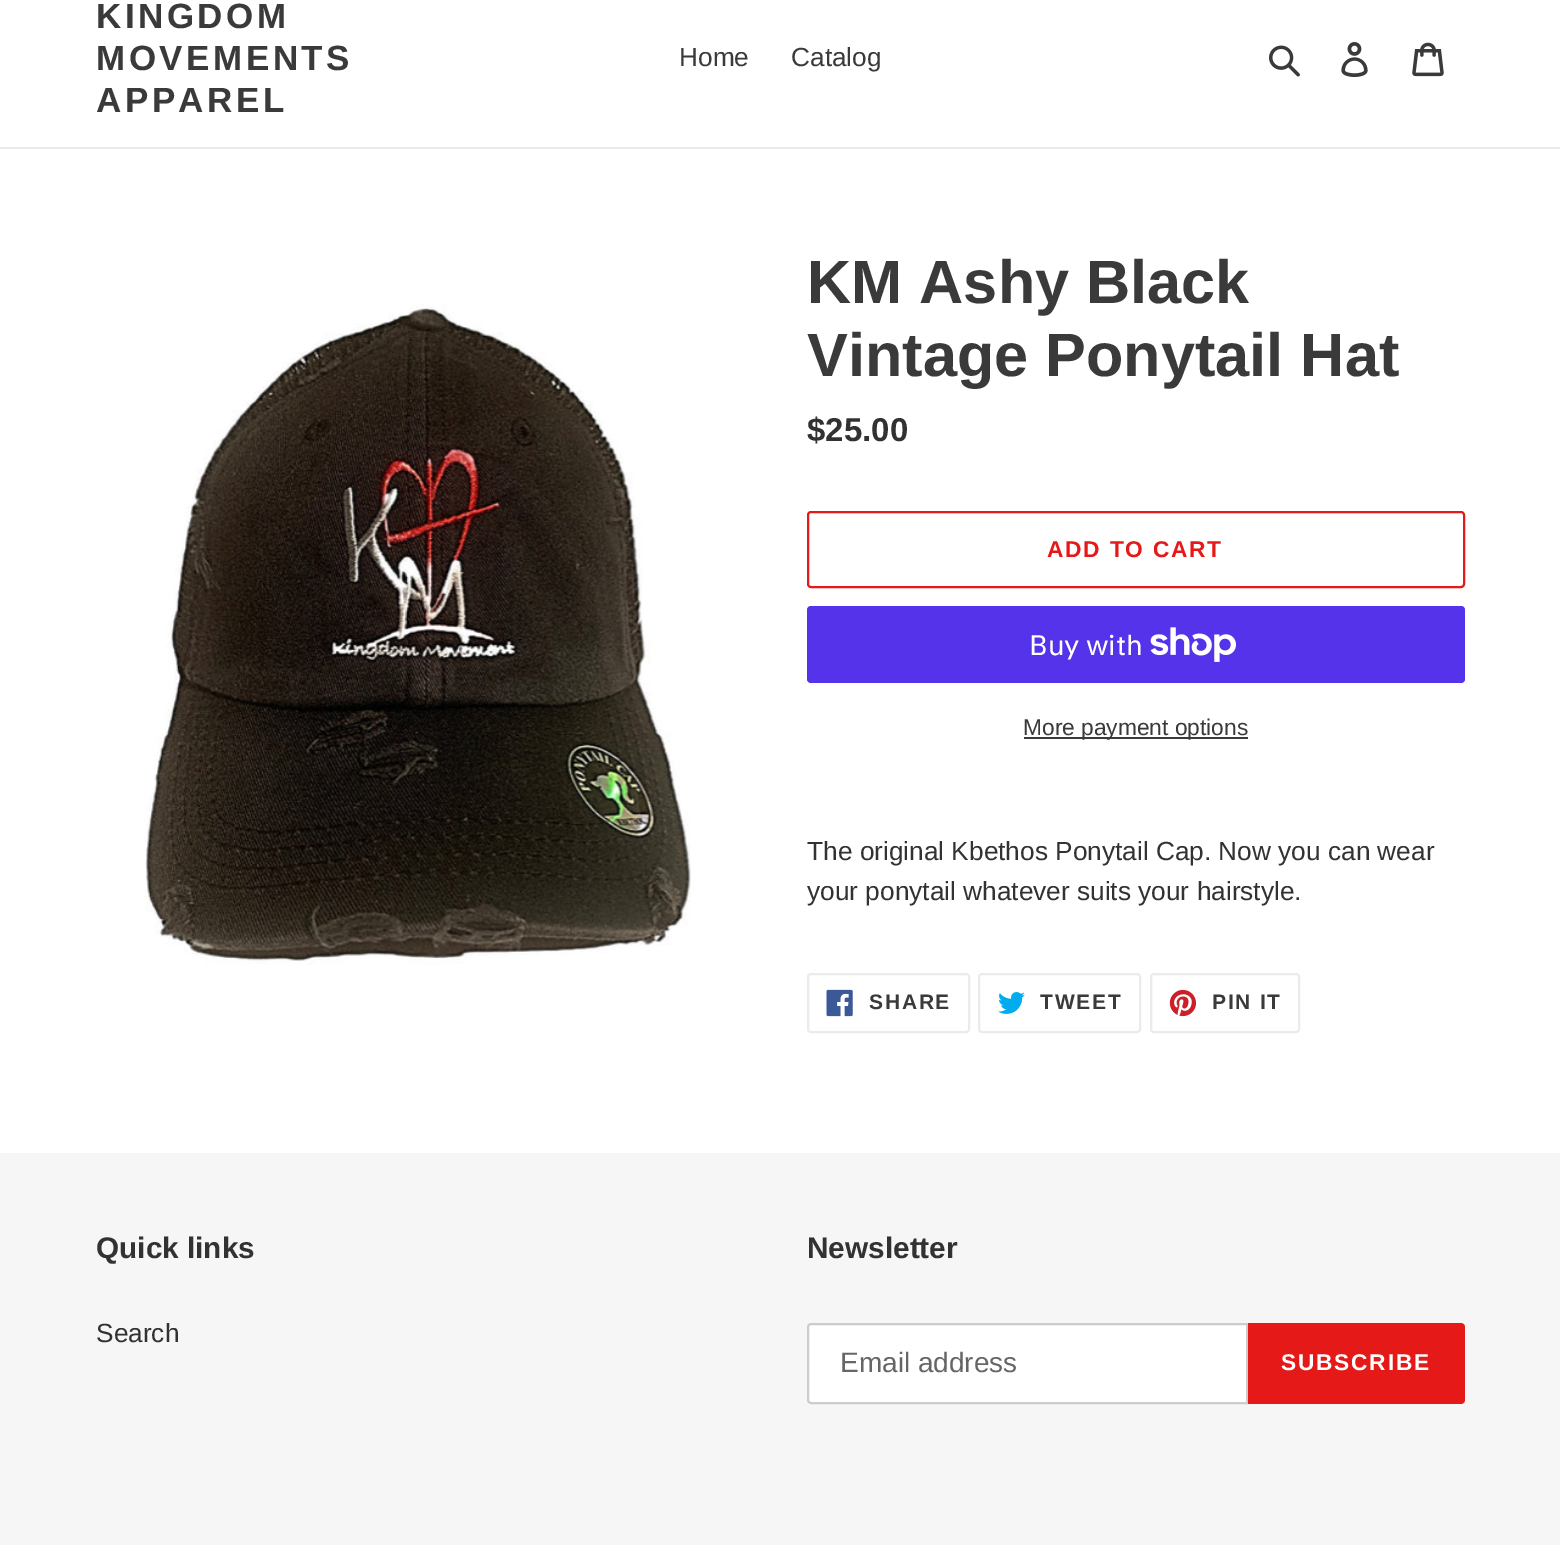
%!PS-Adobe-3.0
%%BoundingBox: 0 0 1560 1545
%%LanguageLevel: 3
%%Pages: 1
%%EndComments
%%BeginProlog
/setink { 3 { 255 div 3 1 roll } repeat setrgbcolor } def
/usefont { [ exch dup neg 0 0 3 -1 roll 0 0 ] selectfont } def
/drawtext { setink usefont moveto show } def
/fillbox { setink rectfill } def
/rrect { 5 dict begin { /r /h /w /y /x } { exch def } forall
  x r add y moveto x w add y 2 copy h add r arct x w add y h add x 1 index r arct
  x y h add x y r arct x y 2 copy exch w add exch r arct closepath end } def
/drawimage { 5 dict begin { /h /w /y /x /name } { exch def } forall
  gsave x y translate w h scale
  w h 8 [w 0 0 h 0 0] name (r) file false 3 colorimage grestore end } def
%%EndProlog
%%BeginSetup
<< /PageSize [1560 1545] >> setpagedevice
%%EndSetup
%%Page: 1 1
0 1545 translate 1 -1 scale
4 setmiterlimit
0 0 1560 1545 255 255 255 fillbox
0 147 1560 2 235 235 235 fillbox
/LiberationSans-Bold 35 usefont
58 58 58 setink
96 28 moveto 3.5 0 (KINGDOM) ashow
96 70 moveto 3.5 0 (MOVEMENTS) ashow
96 112 moveto 3.5 0 (APPAREL) ashow
(Home) 679 66 /LiberationSans-Regular 26.25 58 58 58 drawtext
(Catalog) 791 66 /LiberationSans-Regular 26.25 58 58 58 drawtext
(assets/img1.rgb) 1269 45 31 32 drawimage
(assets/img2.rgb) 1341 42 27 35 drawimage
(assets/img3.rgb) 1412 42 32 35 drawimage
(assets/img4.rgb) 145 304 546 661 drawimage
(KM Ashy Black) 807 303 /LiberationSans-Bold 61.25 58 58 58 drawtext
(Vintage Ponytail Hat) 807 376 /LiberationSans-Bold 61.25 58 58 58 drawtext
($25.00) 807 441 /LiberationSans-Bold 33 51 50 50 drawtext
230 25 25 setink
2 setlinewidth
808 512 656 75 3 rrect stroke
/LiberationSans-Bold 22.75 usefont
1047 557 moveto 1.75 0 (ADD TO CART) ashow
84 51 235 setink
807 606 658 77 4 rrect fill
(Buy with) 1029 655 /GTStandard-Regular 28 255 255 255 drawtext
(assets/img5.rgb) 1150 627 86 35 drawimage
1024 737 224 2 58 58 58 fillbox
(More payment options) 1023 735 /LiberationSans-Regular 22.75 58 58 58 drawtext
(The original Kbethos Ponytail Cap. Now you can wear) 807 860 /LiberationSans-Regular 26.25 51 50 50 drawtext
(your ponytail whatever suits your hairstyle.) 807 900 /LiberationSans-Regular 26.25 51 50 50 drawtext
235 235 235 setink
808 974 161 58 3 rrect stroke
(assets/img6.rgb) 826 989 27 28 drawimage
/LiberationSans-Bold 21 usefont
58 58 58 setink
869 1009 moveto 1.75 0 (SHARE) ashow
235 235 235 setink
979 974 161 58 3 rrect stroke
(assets/img7.rgb) 998 992 27 22 drawimage
58 58 58 setink
1040 1009 moveto 1.75 0 (TWEET) ashow
235 235 235 setink
1151 974 148 58 3 rrect stroke
(assets/img8.rgb) 1169 989 28 28 drawimage
58 58 58 setink
1212 1009 moveto 1.75 0 (PIN IT) ashow
0 1153 1560 392 246 246 246 fillbox
(Quick links) 96 1258 /LiberationSans-Bold 29.75 51 50 50 drawtext
(Search) 96 1342 /LiberationSans-Regular 26.25 51 50 50 drawtext
(Newsletter) 807 1258 /LiberationSans-Bold 29.75 51 50 50 drawtext
255 255 255 setink
811 1324 moveto 1247 1324 lineto 1247 1403 lineto 811 1403 lineto 809.5 1403 808 1401.5 808 1400 curveto 808 1327 lineto 808 1325.5 809.5 1324 811 1324 curveto closepath gsave fill grestore
204 204 204 setink
stroke
(Email address) 840 1372 /LiberationSans-Regular 28 102 102 102 drawtext
230 25 25 setink
1248 1323 moveto 1461 1323 lineto 1463 1323 1465 1325 1465 1327 curveto 1465 1400 lineto 1465 1402 1463 1404 1461 1404 curveto 1248 1404 lineto closepath fill
/LiberationSans-Bold 22.75 usefont
255 255 255 setink
1281 1370 moveto 1.75 0 (SUBSCRIBE) ashow
showpage
%%EOF
